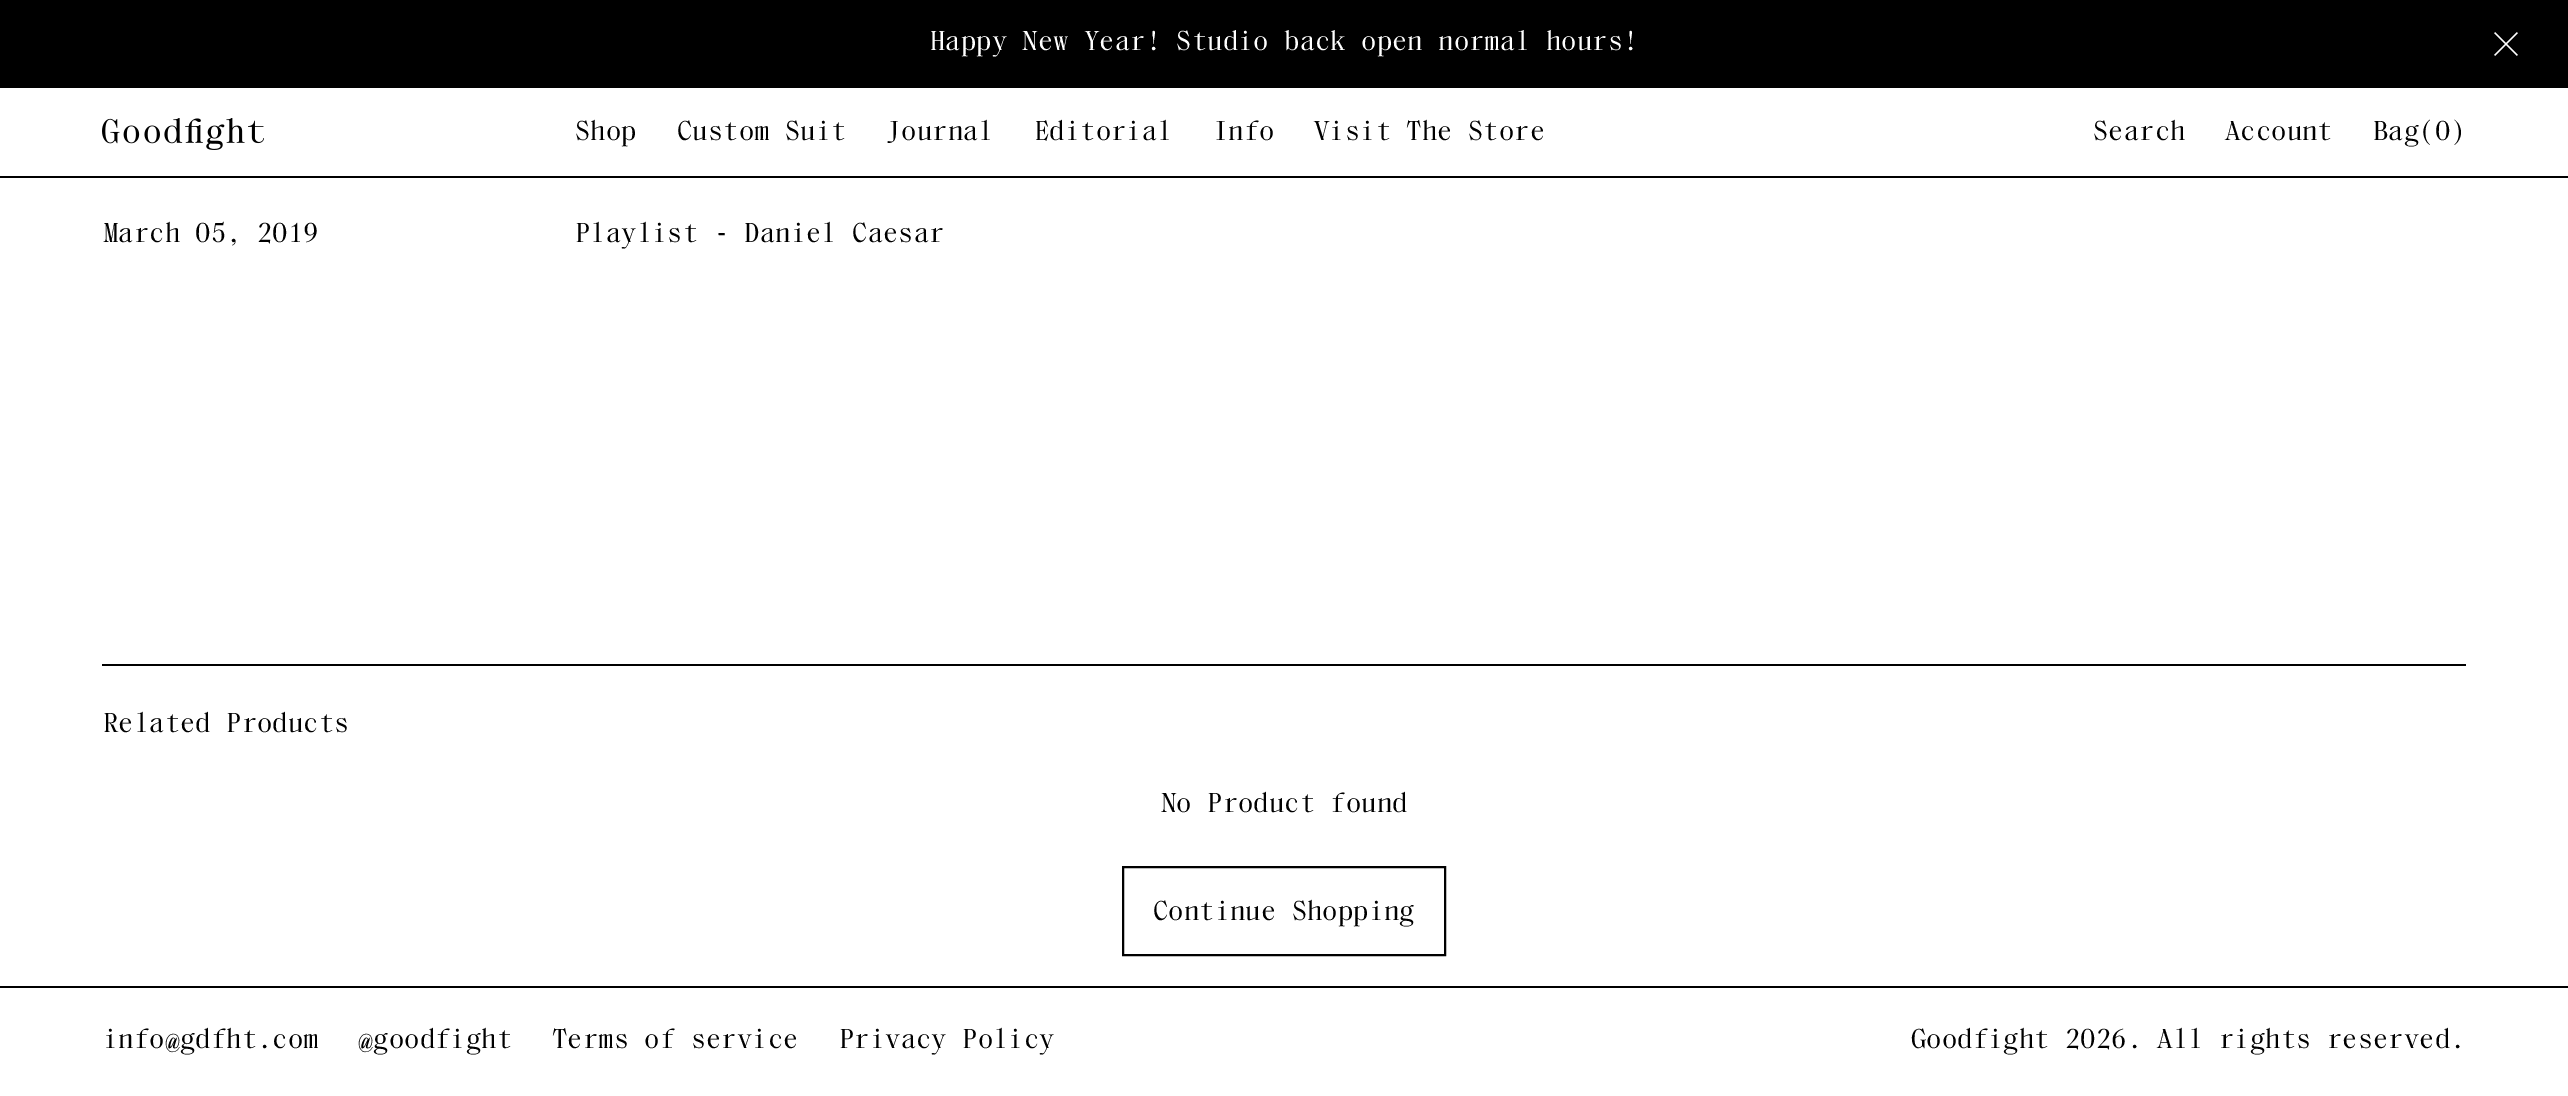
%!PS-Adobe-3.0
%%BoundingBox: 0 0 2568 1096
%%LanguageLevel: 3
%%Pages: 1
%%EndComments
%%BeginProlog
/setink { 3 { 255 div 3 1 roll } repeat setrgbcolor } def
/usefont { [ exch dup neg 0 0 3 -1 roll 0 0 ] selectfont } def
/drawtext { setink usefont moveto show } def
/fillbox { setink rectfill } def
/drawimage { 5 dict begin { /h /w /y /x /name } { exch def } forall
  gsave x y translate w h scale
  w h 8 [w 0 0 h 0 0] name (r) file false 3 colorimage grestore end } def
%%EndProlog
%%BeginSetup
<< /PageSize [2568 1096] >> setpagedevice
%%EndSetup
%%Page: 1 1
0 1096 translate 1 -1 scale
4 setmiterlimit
0 0 2568 1096 255 255 255 fillbox
0 0 2568 88 0 0 0 fillbox
gsave
930 30 708 28 rectclip
(Happy New Year! Studio back open normal hours!) 930 50 /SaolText-ExtraBold 28 255 255 255 drawtext
grestore
(assets/img1.rgb) 2494 32 24 24 drawimage
0 176 2568 2 0 0 0 fillbox
(assets/img2.rgb) 102 118 162 32 drawimage
(Shop) 575 140 /SaolText-ExtraBold 28 0 0 0 drawtext
(Custom Suit) 677 140 /SaolText-ExtraBold 28 0 0 0 drawtext
(Journal) 886 140 /SaolText-ExtraBold 28 0 0 0 drawtext
(Editorial) 1034 140 /SaolText-ExtraBold 28 0 0 0 drawtext
(Info) 1213 140 /SaolText-ExtraBold 28 0 0 0 drawtext
(Visit The Store) 1314 140 /SaolText-ExtraBold 28 0 0 0 drawtext
(Search) 2093 140 /SaolText-ExtraBold 28 0 0 0 drawtext
(Account) 2225 140 /SaolText-ExtraBold 28 0 0 0 drawtext
(Bag\(0\)) 2373 140 /SaolText-ExtraBold 28 0 0 0 drawtext
(March 05, 2019) 103 242 /SaolText-ExtraBold 28 0 0 0 drawtext
(Playlist - Daniel Caesar) 575 242 /SaolText-ExtraBold 28 0 0 0 drawtext
102 664 2364 2 0 0 0 fillbox
(Related Products) 103 732 /SaolText-ExtraBold 28 0 0 0 drawtext
(No Product found) 1161 812 /SaolText-ExtraBold 28 0 0 0 drawtext
2 setlinewidth
1123 867 322 88 rectstroke
(Continue Shopping) 1153 920 /SaolText-ExtraBold 28 0 0 0 drawtext
0 986 2568 2 0 0 0 fillbox
(info@gdfht.com) 103 1048 /SaolText-ExtraBold 28 0 0 0 drawtext
(@goodfight) 358 1048 /SaolText-ExtraBold 28 0 0 0 drawtext
(Terms of service) 552 1048 /SaolText-ExtraBold 28 0 0 0 drawtext
(Privacy Policy) 839 1048 /SaolText-ExtraBold 28 0 0 0 drawtext
(Goodfight 2026. All rights reserved.) 1911 1048 /SaolText-ExtraBold 28 0 0 0 drawtext
showpage
%%EOF
